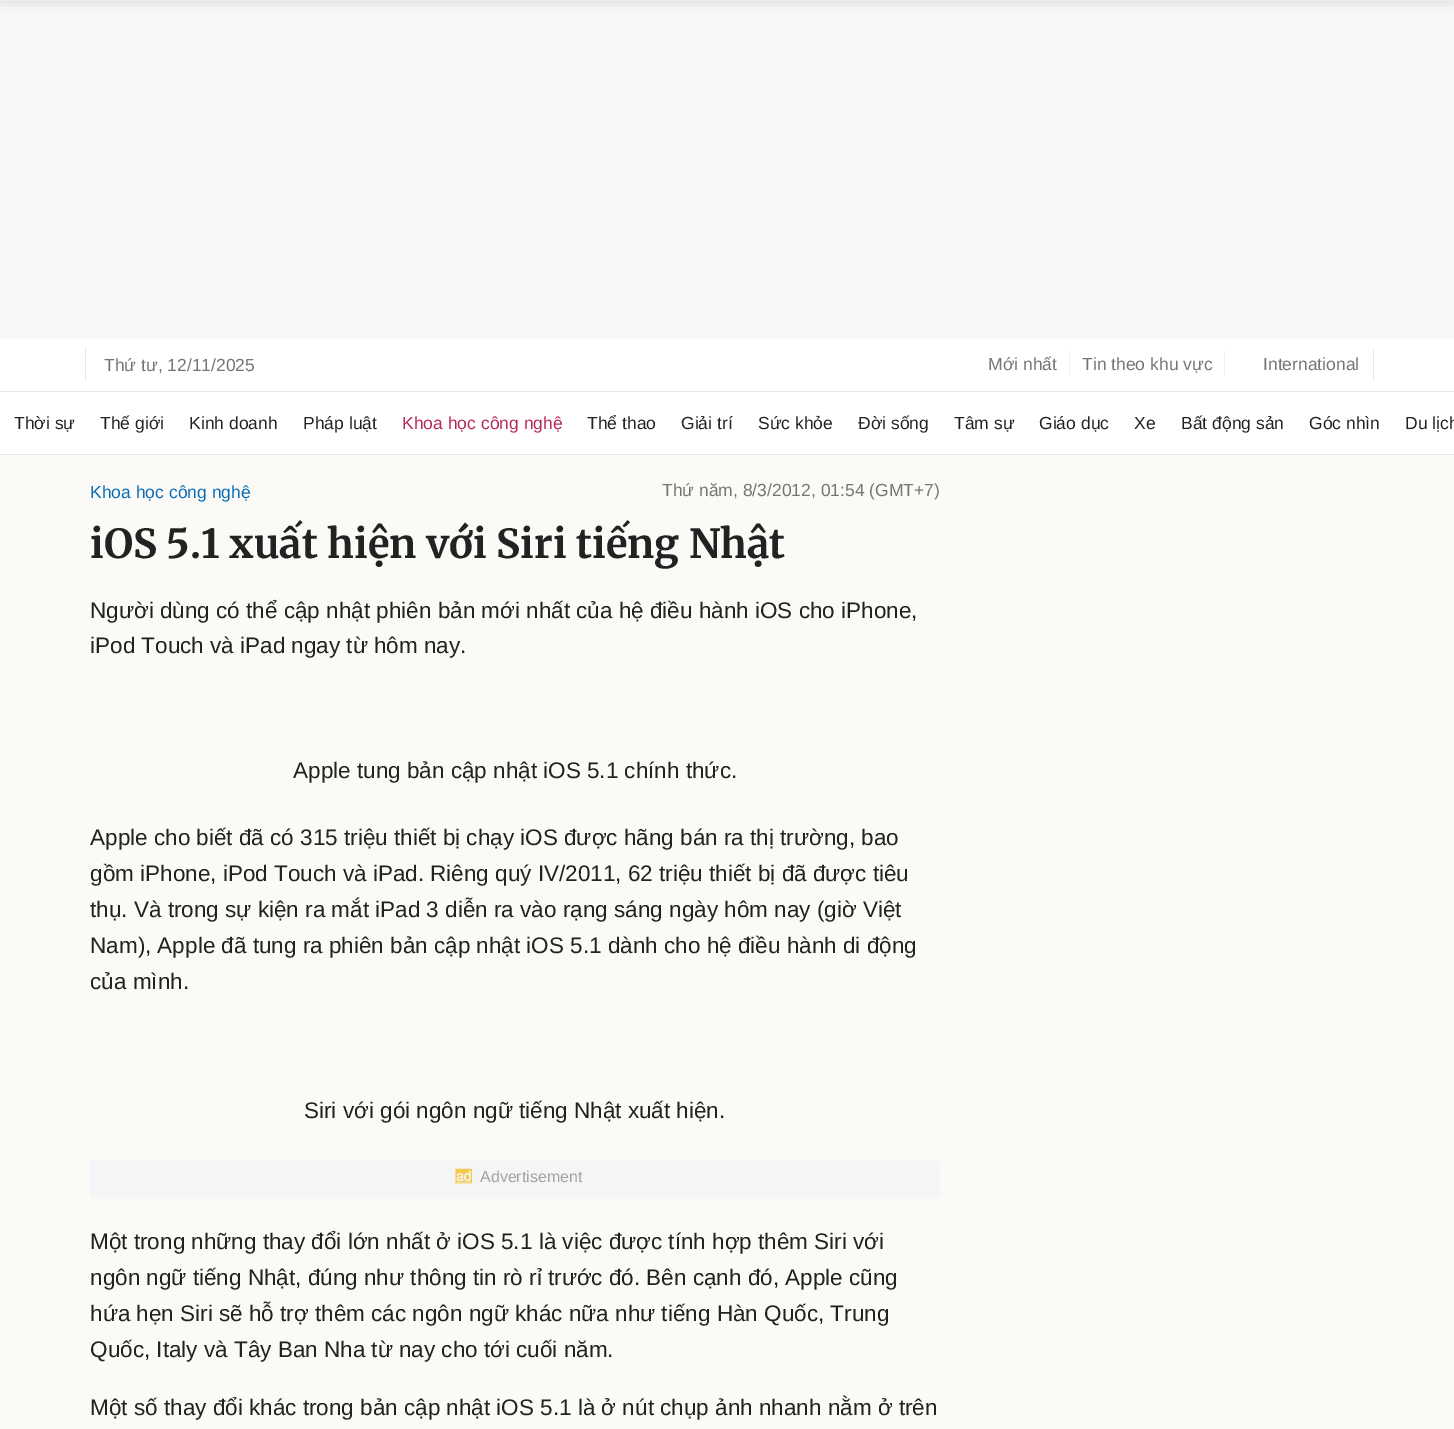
%!PS-Adobe-3.0
%%BoundingBox: 0 0 1454 1429
%%LanguageLevel: 3
%%Pages: 1
%%EndComments
%%BeginProlog
/setink { 3 { 255 div 3 1 roll } repeat setrgbcolor } def
/usefont { [ exch dup neg 0 0 3 -1 roll 0 0 ] selectfont } def
/drawtext { setink usefont moveto show } def
/fillbox { setink rectfill } def
/setalpha { dup .setfillconstantalpha .setstrokeconstantalpha } def
/rrect { 5 dict begin { /r /h /w /y /x } { exch def } forall
  x r add y moveto x w add y 2 copy h add r arct x w add y h add x 1 index r arct
  x y h add x y r arct x y 2 copy exch w add exch r arct closepath end } def
/softshadow { 12 dict begin { /a /b /q /h /w /y /x } { exch def } forall gsave /was 0 def
  9 -2 -9 { dup b mul 4 div /e exch def 1 sub .425 mul 2.718 exch exp 1 add a .99 .min exch div /now exch def
    1 1 now sub 1 was sub div sub setalpha /was now def
    w h .min e 2 mul add 0 gt { x e sub y e sub w e 2 mul add h e 2 mul add
      q e add b .6 mul add w h .min 2 div e add .min 0 .max rrect fill } if } for grestore end } def
/drawimage { 5 dict begin { /h /w /y /x /name } { exch def } forall
  gsave x y translate w h scale
  w h 8 [w 0 0 h 0 0] name (r) file false 3 colorimage grestore end } def
%%EndProlog
%%BeginSetup
<< /PageSize [1454 1429] /PageUsesTransparency true >> setpagedevice
%%EndSetup
%%Page: 1 1
0 .pushpdf14devicefilter
0 1429 translate 1 -1 scale
4 setmiterlimit
0 0 1454 1429 255 255 255 fillbox
0 1 1454 338 247 247 247 fillbox
0 391 1454 1 229 229 229 fillbox
85 348 1 32 229 229 229 fillbox
(Thứ tư, 12/11/2025) 104 371 /LiberationSans-Regular 17.5 117 117 117 drawtext
(Mới nhất) 988 370 /LiberationSans-Regular 17.5 117 117 117 drawtext
1069 351 1 25 239 239 239 fillbox
(Tin theo khu vực) 1082 370 /LiberationSans-Regular 17.5 117 117 117 drawtext
1224 351 1 25 239 239 239 fillbox
(International) 1263 370 /LiberationSans-Regular 17.5 117 117 117 drawtext
1373 350 1 30 229 229 229 fillbox
0 454 1454 1 229 229 229 fillbox
(Thời sự) 14 429 /LiberationSans-Regular 17.5 34 34 34 drawtext
(Thế giới) 100 429 /LiberationSans-Regular 17.5 34 34 34 drawtext
(Kinh doanh) 189 429 /LiberationSans-Regular 17.5 34 34 34 drawtext
(Pháp luật) 303 429 /LiberationSans-Regular 17.5 34 34 34 drawtext
(Khoa học công nghệ) 402 429 /LiberationSans-Regular 17.5 181 39 89 drawtext
(Thể thao) 587 429 /LiberationSans-Regular 17.5 34 34 34 drawtext
(Giải trí) 681 429 /LiberationSans-Regular 17.5 34 34 34 drawtext
(Sức khỏe) 758 429 /LiberationSans-Regular 17.5 34 34 34 drawtext
(Đời sống) 858 429 /LiberationSans-Regular 17.5 34 34 34 drawtext
(Tâm sự) 954 429 /LiberationSans-Regular 17.5 34 34 34 drawtext
(Giáo dục) 1039 429 /LiberationSans-Regular 17.5 34 34 34 drawtext
(Xe) 1134 429 /LiberationSans-Regular 17.5 34 34 34 drawtext
(Bất động sản) 1181 429 /LiberationSans-Regular 17.5 34 34 34 drawtext
(Góc nhìn) 1309 429 /LiberationSans-Regular 17.5 34 34 34 drawtext
(Du lịch) 1405 429 /LiberationSans-Regular 17.5 34 34 34 drawtext
0 455 1454 974 252 250 246 fillbox
0 0 0 setink
0 -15 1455 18 0 5 0.1 softshadow
(Khoa học công nghệ) 90 498 /LiberationSans-Regular 17.5 7 109 182 drawtext
(Thứ năm, 8/3/2012, 01:54 \(GMT+7\)) 662 496 /LiberationSans-Regular 17.5 117 117 117 drawtext
(iOS 5.1 xuất hiện với Siri tiếng Nhật) 90 558 /Merriweather-Bold 40 34 34 34 drawtext
(Người dùng có thể cập nhật phiên bản mới nhất của hệ điều hành iOS cho iPhone,) 90 618 /LiberationSans-Regular 22.5 34 34 34 drawtext
(iPod Touch và iPad ngay từ hôm nay.) 90 653 /LiberationSans-Regular 22.5 34 34 34 drawtext
(Apple tung bản cập nhật iOS 5.1 chính thức.) 293 778 /LiberationSans-Regular 22.5 34 34 34 drawtext
(Apple cho biết đã có 315 triệu thiết bị chạy iOS được hãng bán ra thị trường, bao) 90 845 /LiberationSans-Regular 22.5 34 34 34 drawtext
(gồm iPhone, iPod Touch và iPad. Riêng quý IV/2011, 62 triệu thiết bị đã được tiêu) 90 881 /LiberationSans-Regular 22.5 34 34 34 drawtext
(thụ. Và trong sự kiện ra mắt iPad 3 diễn ra vào rạng sáng ngày hôm nay \(giờ Việt) 90 917 /LiberationSans-Regular 22.5 34 34 34 drawtext
(Nam\), Apple đã tung ra phiên bản cập nhật iOS 5.1 dành cho hệ điều hành di động) 90 953 /LiberationSans-Regular 22.5 34 34 34 drawtext
(của mình.) 90 989 /LiberationSans-Regular 22.5 34 34 34 drawtext
(Siri với gói ngôn ngữ tiếng Nhật xuất hiện.) 304 1118 /LiberationSans-Regular 22.5 34 34 34 drawtext
244 245 246 setink
90 1160 850 39 5 rrect fill
(assets/img1.rgb) 455 1168 18 16 drawimage
(Advertisement) 480 1182 /LiberationSans-Regular 16 162 162 162 drawtext
(Một trong những thay đổi lớn nhất ở iOS 5.1 là việc được tính hợp thêm Siri với) 90 1249 /LiberationSans-Regular 22.5 34 34 34 drawtext
(ngôn ngữ tiếng Nhật, đúng như thông tin rò rỉ trước đó. Bên cạnh đó, Apple cũng) 90 1285 /LiberationSans-Regular 22.5 34 34 34 drawtext
(hứa hẹn Siri sẽ hỗ trợ thêm các ngôn ngữ khác nữa như tiếng Hàn Quốc, Trung) 90 1321 /LiberationSans-Regular 22.5 34 34 34 drawtext
(Quốc, Italy và Tây Ban Nha từ nay cho tới cuối năm.) 90 1357 /LiberationSans-Regular 22.5 34 34 34 drawtext
(Một số thay đổi khác trong bản cập nhật iOS 5.1 là ở nút chụp ảnh nhanh nằm ở trên) 90 1415 /LiberationSans-Regular 22.5 34 34 34 drawtext
.poppdf14devicefilter showpage
%%EOF
